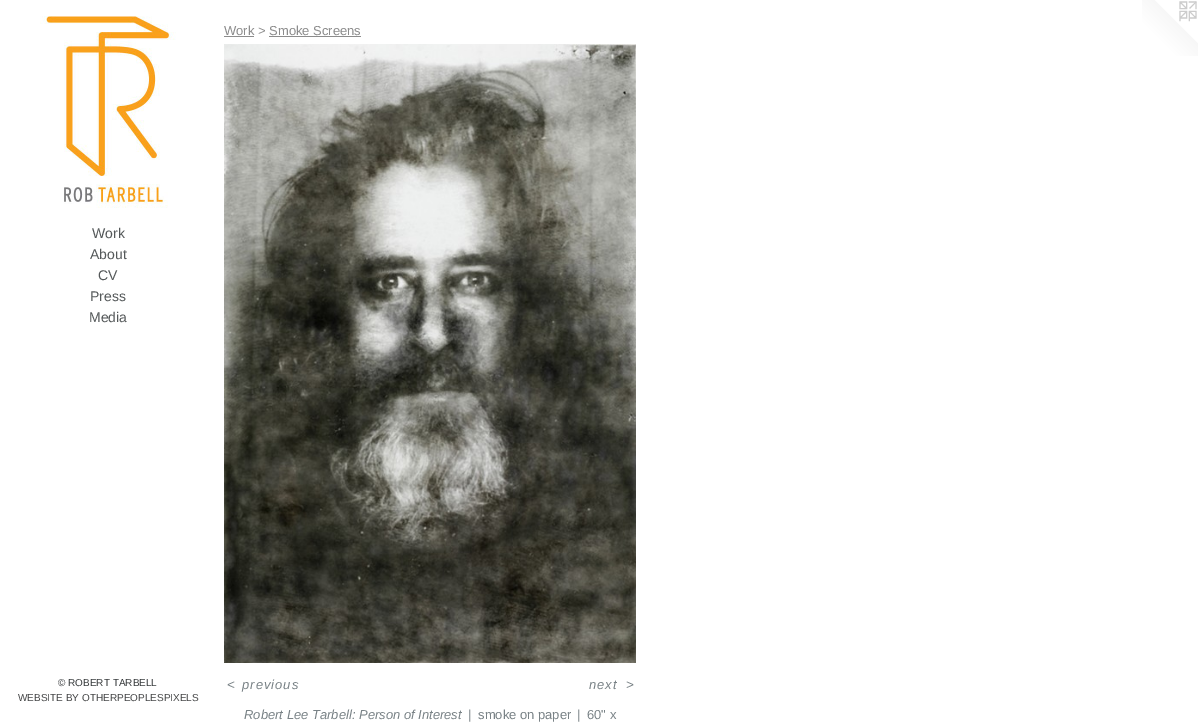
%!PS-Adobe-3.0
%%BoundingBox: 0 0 1198 728
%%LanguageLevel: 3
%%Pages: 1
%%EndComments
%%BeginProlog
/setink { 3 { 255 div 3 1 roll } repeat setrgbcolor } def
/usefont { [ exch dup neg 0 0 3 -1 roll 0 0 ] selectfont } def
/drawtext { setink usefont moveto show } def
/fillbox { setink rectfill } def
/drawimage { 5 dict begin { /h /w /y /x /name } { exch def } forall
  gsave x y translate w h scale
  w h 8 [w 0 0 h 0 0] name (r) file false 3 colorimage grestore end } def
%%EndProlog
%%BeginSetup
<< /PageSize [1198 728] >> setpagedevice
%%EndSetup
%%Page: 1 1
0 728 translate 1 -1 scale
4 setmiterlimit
0 0 1198 728 255 255 255 fillbox
(assets/img1.rgb) 40 16 136 192 drawimage
(Work) 92 238 /LiberationSans-Regular 14 84 88 89 drawtext
(About) 90 259 /LiberationSans-Regular 14 84 88 89 drawtext
(CV) 98 280 /LiberationSans-Regular 14 84 88 89 drawtext
(Press) 90 301 /LiberationSans-Regular 14 84 88 89 drawtext
(Media) 89 322 /LiberationSans-Regular 14 84 88 89 drawtext
(© ROBERT TARBELL) 58 686 /LiberationSans-Regular 10 56 59 61 drawtext
(WEBSITE BY OTHERPEOPLESPIXELS) 18 701 /LiberationSans-Regular 10 68 69 70 drawtext
(Work > Smoke Screens) 224 35 /LiberationSans-Regular 13 140 140 140 drawtext
224 36 30 1 140 140 140 fillbox
269 36 92 1 140 140 140 fillbox
(assets/img2.rgb) 224 44 412 619 drawimage
/LiberationSans-Italic 13 usefont
121 130 134 setink
227 689 moveto 1 0 (<) ashow
242 689 moveto 1 0 (previous) ashow
589 689 moveto 1 0 (next) ashow
626 689 moveto 1 0 (>) ashow
(Robert Lee Tarbell: Person of Interest) 244 719 /LiberationSans-Italic 13 121 130 134 drawtext
(|) 468 719 /LiberationSans-Regular 13 121 130 134 drawtext
(smoke on paper) 478 719 /LiberationSans-Regular 13 121 130 134 drawtext
(|) 577 719 /LiberationSans-Regular 13 121 130 134 drawtext
(60" x) 587 719 /LiberationSans-Regular 13 121 130 134 drawtext
(assets/img3.rgb) 1142 0 56 56 drawimage
showpage
%%EOF
